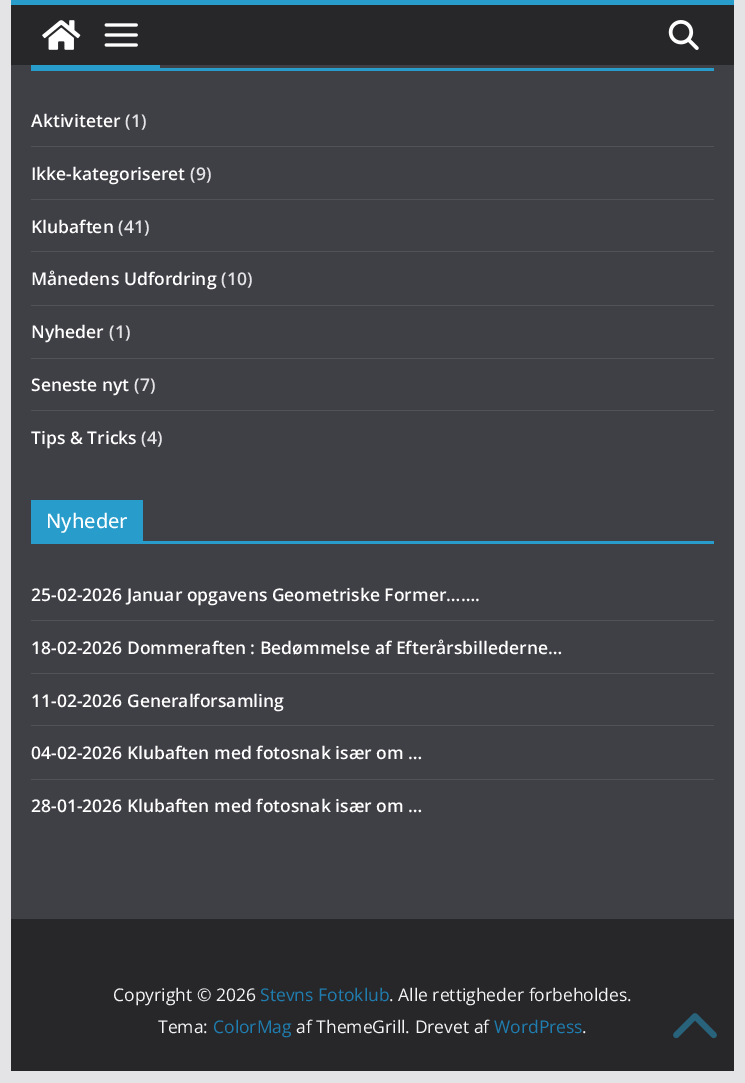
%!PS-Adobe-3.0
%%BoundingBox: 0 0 745 1083
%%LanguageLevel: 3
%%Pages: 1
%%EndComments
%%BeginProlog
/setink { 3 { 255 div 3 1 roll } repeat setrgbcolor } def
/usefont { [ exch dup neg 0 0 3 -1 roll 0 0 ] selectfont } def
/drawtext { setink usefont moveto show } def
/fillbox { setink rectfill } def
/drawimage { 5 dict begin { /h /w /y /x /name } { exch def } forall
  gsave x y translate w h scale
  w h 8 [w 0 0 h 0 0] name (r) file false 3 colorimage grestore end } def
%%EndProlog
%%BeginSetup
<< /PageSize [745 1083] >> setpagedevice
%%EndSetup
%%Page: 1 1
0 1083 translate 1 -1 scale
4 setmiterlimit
0 0 745 1083 228 228 231 fillbox
11 5 723 60 39 39 42 fillbox
11 0 723 5 40 157 204 fillbox
(assets/img1.rgb) 42 20 39 30 drawimage
(assets/img2.rgb) 104 23 34 24 drawimage
(assets/img3.rgb) 668 20 31 30 drawimage
11 65 723 854 63 63 70 fillbox
31 68 683 3 40 157 204 fillbox
31 65 129 3 40 157 204 fillbox
31 146 683 1 82 82 91 fillbox
(Aktiviteter) 31 127 /OpenSans-SemiBold 17.5 255 255 255 drawtext
(\(1\)) 125 127 /OpenSans-SemiBold 17.5 228 228 231 drawtext
31 199 683 1 82 82 91 fillbox
(Ikke-kategoriseret) 31 180 /OpenSans-SemiBold 17.5 255 255 255 drawtext
(\(9\)) 190 180 /OpenSans-SemiBold 17.5 228 228 231 drawtext
31 251 683 1 82 82 91 fillbox
(Klubaften) 31 233 /OpenSans-SemiBold 17.5 255 255 255 drawtext
(\(41\)) 118 233 /OpenSans-SemiBold 17.5 228 228 231 drawtext
31 305 683 1 82 82 91 fillbox
(Månedens Udfordring) 31 285 /OpenSans-SemiBold 17.5 255 255 255 drawtext
(\(10\)) 221 285 /OpenSans-SemiBold 17.5 228 228 231 drawtext
31 358 683 1 82 82 91 fillbox
(Nyheder) 31 338 /OpenSans-SemiBold 17.5 255 255 255 drawtext
(\(1\)) 109 338 /OpenSans-SemiBold 17.5 228 228 231 drawtext
31 410 683 1 82 82 91 fillbox
(Seneste nyt) 31 391 /OpenSans-SemiBold 17.5 255 255 255 drawtext
(\(7\)) 134 391 /OpenSans-SemiBold 17.5 228 228 231 drawtext
(Tips & Tricks) 31 444 /OpenSans-SemiBold 17.5 255 255 255 drawtext
(\(4\)) 141 444 /OpenSans-SemiBold 17.5 228 228 231 drawtext
31 541 683 3 40 157 204 fillbox
31 500 112 41 40 157 204 fillbox
(Nyheder) 46 528 /OpenSans-Medium 20 255 255 255 drawtext
31 620 683 1 82 82 91 fillbox
(25-02-2026 Januar opgavens Geometriske Former…….) 31 601 /OpenSans-SemiBold 17.5 255 255 255 drawtext
31 673 683 1 82 82 91 fillbox
(18-02-2026 Dommeraften : Bedømmelse af Efterårsbillederne…) 31 654 /OpenSans-SemiBold 17.5 255 255 255 drawtext
31 725 683 1 82 82 91 fillbox
(11-02-2026 Generalforsamling) 31 707 /OpenSans-SemiBold 17.5 255 255 255 drawtext
31 779 683 1 82 82 91 fillbox
(04-02-2026 Klubaften med fotosnak især om …) 31 759 /OpenSans-SemiBold 17.5 255 255 255 drawtext
(28-01-2026 Klubaften med fotosnak især om …) 31 812 /OpenSans-SemiBold 17.5 255 255 255 drawtext
11 919 723 152 39 39 42 fillbox
(Copyright © 2026) 113 1001 /OpenSans-Regular 17.5 244 244 245 drawtext
(Stevns Fotoklub) 260 1001 /OpenSans-Regular 17.5 32 125 175 drawtext
(. Alle rettigheder forbeholdes.) 389 1001 /OpenSans-Regular 17.5 244 244 245 drawtext
(Tema:) 158 1033 /OpenSans-Regular 17.5 244 244 245 drawtext
(ColorMag) 213 1033 /OpenSans-Regular 17.5 32 125 175 drawtext
(af ThemeGrill. Drevet af) 296 1033 /OpenSans-Regular 17.5 244 244 245 drawtext
(WordPress) 494 1033 /OpenSans-Regular 17.5 32 125 175 drawtext
(.) 582 1033 /OpenSans-Regular 17.5 244 244 245 drawtext
(assets/img4.rgb) 673 1013 44 26 drawimage
showpage
%%EOF
